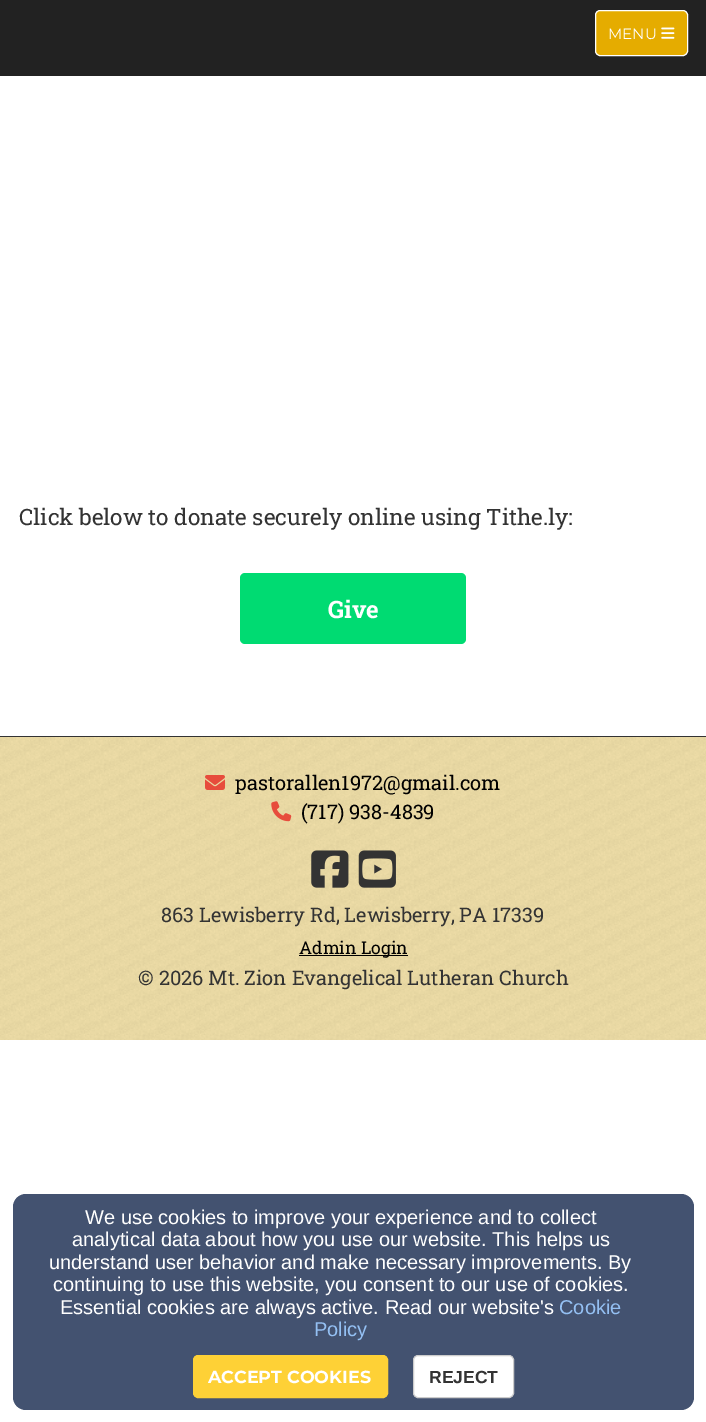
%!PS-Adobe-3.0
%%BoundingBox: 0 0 706 1422
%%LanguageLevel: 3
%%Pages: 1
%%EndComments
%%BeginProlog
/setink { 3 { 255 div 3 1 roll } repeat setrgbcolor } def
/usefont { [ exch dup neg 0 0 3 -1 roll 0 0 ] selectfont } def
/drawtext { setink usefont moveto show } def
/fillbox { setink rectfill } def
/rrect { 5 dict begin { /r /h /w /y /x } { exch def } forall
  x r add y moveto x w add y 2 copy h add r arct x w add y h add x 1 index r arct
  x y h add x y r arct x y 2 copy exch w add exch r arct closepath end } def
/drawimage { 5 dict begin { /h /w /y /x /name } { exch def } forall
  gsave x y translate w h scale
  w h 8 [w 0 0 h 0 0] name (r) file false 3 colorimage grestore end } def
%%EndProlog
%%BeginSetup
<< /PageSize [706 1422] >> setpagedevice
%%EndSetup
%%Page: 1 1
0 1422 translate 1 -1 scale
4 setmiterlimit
0 0 706 1422 255 255 255 fillbox
0 0 706 76 34 34 34 fillbox
229 172 0 setink
595.5 10.5 92 45 4.5 rrect gsave fill grestore
255 255 255 setink
stroke
(MENU) 608 39 /Montserrat-Regular 15 255 255 255 drawtext
(assets/img1.rgb) 661 27 14 12 drawimage
(Click below to donate securely online using Tithe.ly:) 19 525 /RobotoSlab-Regular 22.5 51 51 51 drawtext
0 219 114 setink
240 573 226 71 5 rrect fill
(Give) 328 618 /RobotoSlab-Bold 24 255 255 255 drawtext
0 737 706 303 255 237 179 fillbox
(assets/img2.rgb) 0 737 706 303 drawimage
0 736 706 1 51 51 51 fillbox
(assets/img3.rgb) 205 775 20 15 drawimage
(pastorallen1972@gmail.com) 235 790 /RobotoSlab-Regular 20 0 0 0 drawtext
(assets/img4.rgb) 271 801 21 21 drawimage
(\(717\) 938-4839) 301 819 /RobotoSlab-Regular 20 0 0 0 drawtext
(assets/img5.rgb) 311 850 38 38 drawimage
(assets/img6.rgb) 358 850 38 38 drawimage
(863 Lewisberry Rd, Lewisberry, PA 17339) 161 922 /RobotoSlab-Regular 20 51 51 51 drawtext
299 955 109 1 0 0 0 fillbox
(Admin Login) 299 954 /RobotoSlab-Regular 17.5 0 0 0 drawtext
(© 2026 Mt. Zion Evangelical Lutheran Church) 138 985 /RobotoSlab-Regular 20 51 51 51 drawtext
67 82 112 setink
13 1194 681 216 13 rrect fill
(We use cookies to improve your experience and to collect) 85 1224 /LiberationSans-Regular 20 255 255 255 drawtext
(analytical data about how you use our website. This helps us) 72 1246 /LiberationSans-Regular 20 255 255 255 drawtext
(understand user behavior and make necessary improvements. By) 49 1269 /LiberationSans-Regular 20 255 255 255 drawtext
(continuing to use this website, you consent to our use of cookies.) 53 1291 /LiberationSans-Regular 20 255 255 255 drawtext
(Essential cookies are always active. Read our website's) 60 1314 /LiberationSans-Regular 20 255 255 255 drawtext
(Cookie) 559 1314 /LiberationSans-Regular 20 148 192 243 drawtext
(Policy) 314 1336 /LiberationSans-Regular 20 148 192 243 drawtext
254 209 54 setink
193.5 1355.5 194 42 4.5 rrect gsave fill grestore
stroke
(ACCEPT COOKIES) 208 1383 /Montserrat-Bold 17.5 255 255 255 drawtext
413.5 1355.5 100 42 4.5 rrect gsave fill grestore
204 204 204 setink
stroke
(REJECT) 429 1383 /LiberationSans-Bold 17.5 51 51 51 drawtext
showpage
%%EOF
